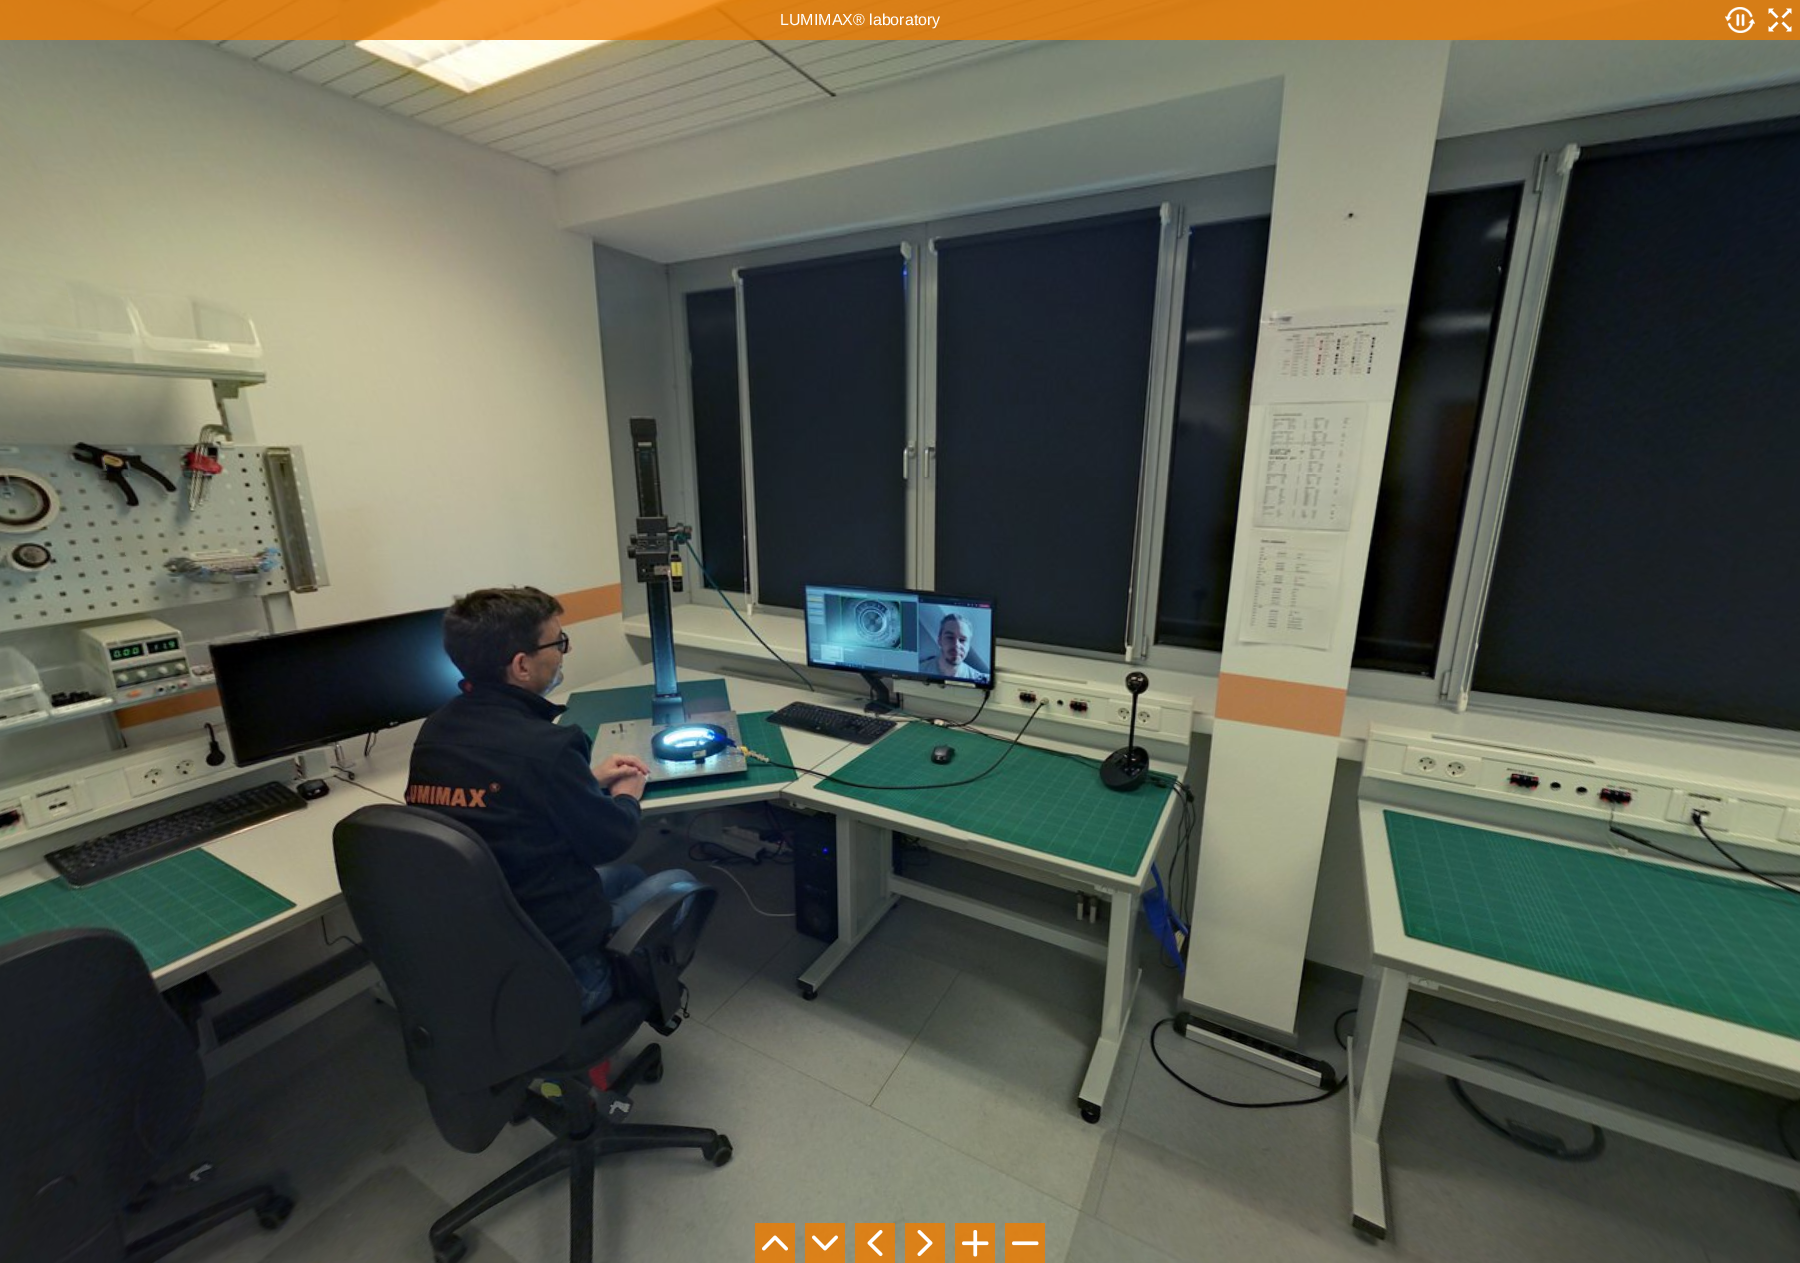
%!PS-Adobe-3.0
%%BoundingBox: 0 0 1800 1263
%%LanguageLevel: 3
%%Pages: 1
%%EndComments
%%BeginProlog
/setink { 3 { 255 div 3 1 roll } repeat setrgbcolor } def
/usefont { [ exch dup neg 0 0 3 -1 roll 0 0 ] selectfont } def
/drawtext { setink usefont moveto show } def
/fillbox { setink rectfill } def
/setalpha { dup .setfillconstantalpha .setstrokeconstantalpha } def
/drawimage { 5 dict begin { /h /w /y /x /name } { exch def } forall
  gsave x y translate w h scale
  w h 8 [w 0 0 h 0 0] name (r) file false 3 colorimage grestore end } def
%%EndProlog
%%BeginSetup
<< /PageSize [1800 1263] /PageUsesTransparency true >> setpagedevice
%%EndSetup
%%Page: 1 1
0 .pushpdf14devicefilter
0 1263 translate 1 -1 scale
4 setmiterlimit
0 0 1800 1263 255 255 255 fillbox
(assets/img1.rgb) 0 0 1800 1263 drawimage
0.8 setalpha
0 0 1720 40 239 125 0 fillbox
1 setalpha
(LUMIMAX® laboratory) 780 25 /LiberationSans-Regular 16 255 255 255 drawtext
0.8 setalpha
1720 0 40 40 239 125 0 fillbox
1 setalpha
(assets/img2.rgb) 1725 7 30 26 drawimage
0.8 setalpha
1760 0 40 40 239 125 0 fillbox
1 setalpha
(assets/img3.rgb) 1768 8 24 24 drawimage
0.8 setalpha
755 1223 40 40 239 125 0 fillbox
1 setalpha
(assets/img4.rgb) 762 1235 26 16 drawimage
0.8 setalpha
805 1223 40 40 239 125 0 fillbox
1 setalpha
(assets/img5.rgb) 812 1235 26 16 drawimage
0.8 setalpha
855 1223 40 40 239 125 0 fillbox
1 setalpha
(assets/img6.rgb) 867 1230 16 26 drawimage
0.8 setalpha
905 1223 40 40 239 125 0 fillbox
1 setalpha
(assets/img7.rgb) 917 1230 16 26 drawimage
0.8 setalpha
955 1223 40 40 239 125 0 fillbox
1 setalpha
(assets/img8.rgb) 962 1230 27 27 drawimage
0.8 setalpha
1005 1223 40 40 239 125 0 fillbox
1 setalpha
(assets/img9.rgb) 1012 1241 27 5 drawimage
.poppdf14devicefilter showpage
%%EOF
